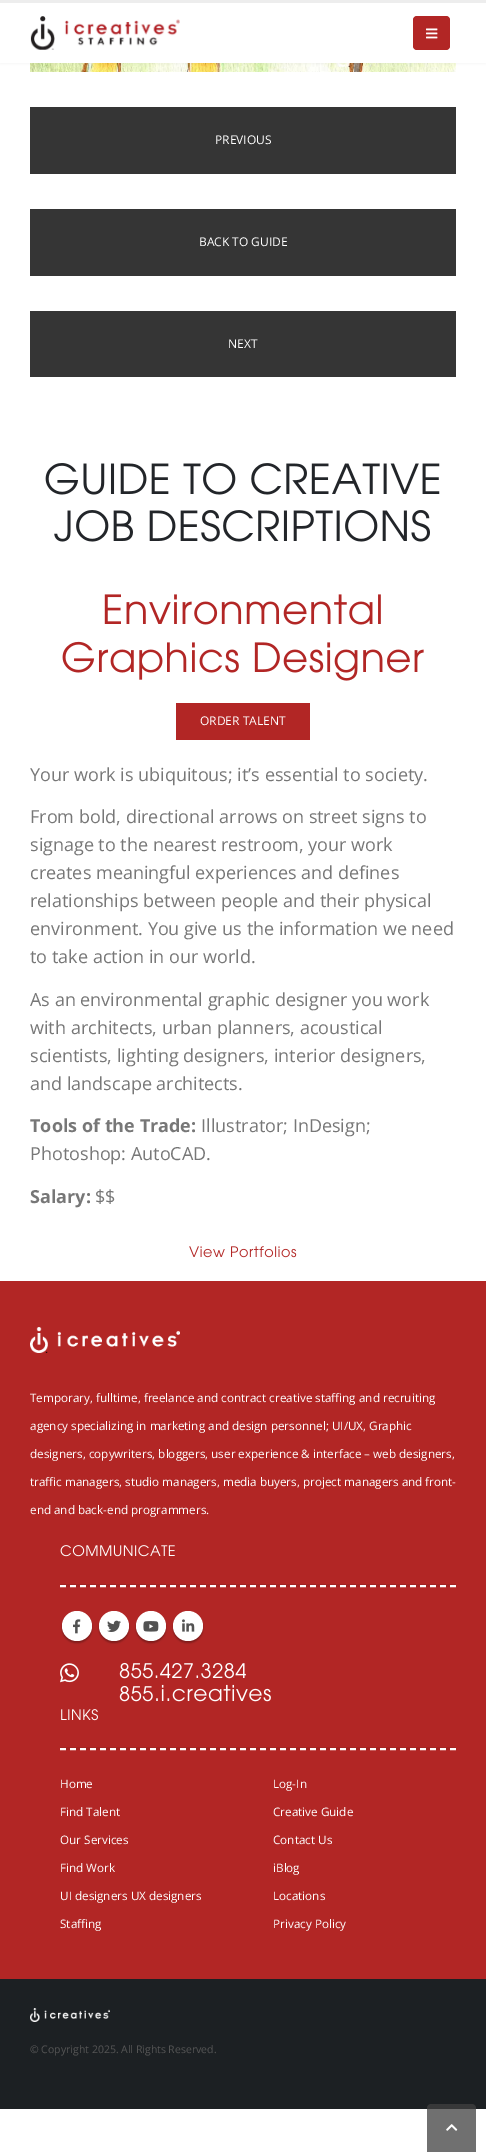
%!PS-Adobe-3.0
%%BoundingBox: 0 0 486 2152
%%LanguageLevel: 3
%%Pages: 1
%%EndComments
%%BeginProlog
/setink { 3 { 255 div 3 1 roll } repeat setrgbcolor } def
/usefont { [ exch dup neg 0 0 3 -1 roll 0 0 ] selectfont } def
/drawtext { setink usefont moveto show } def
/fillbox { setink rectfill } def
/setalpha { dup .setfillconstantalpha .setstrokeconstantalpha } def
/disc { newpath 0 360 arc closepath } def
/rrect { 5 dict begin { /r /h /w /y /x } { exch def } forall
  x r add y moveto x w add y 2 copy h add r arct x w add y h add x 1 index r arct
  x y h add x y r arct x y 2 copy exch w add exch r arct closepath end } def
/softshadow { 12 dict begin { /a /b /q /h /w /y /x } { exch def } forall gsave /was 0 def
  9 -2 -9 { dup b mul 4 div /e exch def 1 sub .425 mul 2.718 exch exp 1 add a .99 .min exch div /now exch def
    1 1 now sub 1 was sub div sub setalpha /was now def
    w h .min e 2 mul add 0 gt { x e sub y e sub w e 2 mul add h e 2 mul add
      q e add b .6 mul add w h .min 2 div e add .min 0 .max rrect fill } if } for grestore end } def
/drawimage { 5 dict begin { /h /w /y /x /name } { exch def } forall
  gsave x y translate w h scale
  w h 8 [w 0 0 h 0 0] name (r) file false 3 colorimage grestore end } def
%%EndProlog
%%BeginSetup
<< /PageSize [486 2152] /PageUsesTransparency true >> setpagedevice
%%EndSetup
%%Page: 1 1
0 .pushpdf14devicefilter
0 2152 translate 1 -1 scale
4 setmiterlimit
0 0 486 2152 255 255 255 fillbox
(assets/img3.rgb) 30 63 426 9 drawimage
0 0 0 setink
0 0 486 63 0 1.5 0.06 softshadow
0 3 486 60 255 255 255 fillbox
0 0 486 3 237 237 237 fillbox
(assets/img1.rgb) 30 16 150 34 drawimage
178 38 37 setink
413 16 37 34 4 rrect fill
(assets/img2.rgb) 426 28 12 11 drawimage
30 107 426 67 53 53 53 fillbox
(PREVIOUS) 215 144 /OpenSans-Regular 12 255 255 255 drawtext
30 209 426 67 53 53 53 fillbox
(BACK TO GUIDE) 199 246 /OpenSans-Regular 12 255 255 255 drawtext
30 311 426 66 53 53 53 fillbox
(NEXT) 228 348 /OpenSans-Regular 12 255 255 255 drawtext
(assets/img4.rgb) 45 463 395 32 drawimage
(assets/img5.rgb) 54 510 376 32 drawimage
(assets/img6.rgb) 104 594 277 31 drawimage
(assets/img7.rgb) 62 641 362 40 drawimage
176 703 134 37 178 38 37 fillbox
(ORDER TALENT) 200 725 /OpenSans-Regular 12 255 255 255 drawtext
(Your work is ubiquitous; it’s essential to society.) 30 781 /OpenSans-Regular 18 119 119 119 drawtext
(From bold, directional arrows on street signs to) 30 823 /OpenSans-Regular 18 119 119 119 drawtext
(signage to the nearest restroom, your work) 30 851 /OpenSans-Regular 18 119 119 119 drawtext
(creates meaningful experiences and defines) 30 879 /OpenSans-Regular 18 119 119 119 drawtext
(relationships between people and their physical) 30 907 /OpenSans-Regular 18 119 119 119 drawtext
(environment. You give us the information we need) 30 935 /OpenSans-Regular 18 119 119 119 drawtext
(to take action in our world.) 30 963 /OpenSans-Regular 18 119 119 119 drawtext
(As an environmental graphic designer you work) 30 1006 /OpenSans-Regular 18 119 119 119 drawtext
(with architects, urban planners, acoustical) 30 1034 /OpenSans-Regular 18 119 119 119 drawtext
(scientists, lighting designers, interior designers,) 30 1062 /OpenSans-Regular 18 119 119 119 drawtext
(and landscape architects.) 30 1090 /OpenSans-Regular 18 119 119 119 drawtext
(Tools of the Trade:) 30 1132 /OpenSans-Bold 18 119 119 119 drawtext
(Illustrator; InDesign;) 201 1132 /OpenSans-Regular 18 119 119 119 drawtext
(Photoshop: AutoCAD.) 30 1160 /OpenSans-Regular 18 119 119 119 drawtext
(Salary:) 30 1203 /OpenSans-Bold 18 119 119 119 drawtext
($$) 95 1203 /OpenSans-Regular 18 119 119 119 drawtext
(assets/img8.rgb) 189 1246 108 12 drawimage
0 1281 486 698 178 38 37 fillbox
(assets/img9.rgb) 30 1327 150 26 drawimage
(Temporary, fulltime, freelance and contract creative staffing and recruiting) 30 1402 /OpenSans-Regular 11.7 255 255 255 drawtext
(agency specializing in marketing and design personnel; UI/UX, Graphic) 30 1430 /OpenSans-Regular 11.7 255 255 255 drawtext
(designers, copywriters, bloggers, user experience & interface – web designers,) 30 1458 /OpenSans-Regular 11.7 255 255 255 drawtext
(traffic managers, studio managers, media buyers, project managers and front-) 30 1486 /OpenSans-Regular 11.7 255 255 255 drawtext
(end and back-end programmers.) 30 1514 /OpenSans-Regular 11.7 255 255 255 drawtext
(assets/img10.rgb) 60 1545 115 12 drawimage
60 1584 396 3 164 35 34 fillbox
255 255 255 setink
2 setlinewidth
[6 4] 0 setdash
60 1586 moveto 456 1586 lineto stroke
0 0 0 setink
62 1613 30 30 15 1 0.3 softshadow
255 255 255 setink
77 1626 15 disc fill
(assets/img11.rgb) 73 1619 8 15 drawimage
0 0 0 setink
99 1613 30 30 15 1 0.3 softshadow
255 255 255 setink
114 1626 15 disc fill
(assets/img12.rgb) 107 1620 14 12 drawimage
0 0 0 setink
136 1613 30 30 15 1 0.3 softshadow
255 255 255 setink
151 1626 15 disc fill
(assets/img13.rgb) 143 1621 16 11 drawimage
0 0 0 setink
173 1613 30 30 15 1 0.3 softshadow
255 255 255 setink
188 1626 15 disc fill
(assets/img14.rgb) 182 1619 13 13 drawimage
(assets/img15.rgb) 60 1663 19 20 drawimage
(assets/img16.rgb) 119 1662 127 17 drawimage
(assets/img17.rgb) 119 1685 34 17 drawimage
(assets/img18.rgb) 156 1684 115 18 drawimage
(assets/img19.rgb) 61 1709 37 12 drawimage
60 1747 396 3 164 35 34 fillbox
255 255 255 setink
60 1749 moveto 456 1749 lineto stroke
(Home) 60 1788 /OpenSans-Regular 11.7 255 255 255 drawtext
(Find Talent) 60 1816 /OpenSans-Regular 11.7 255 255 255 drawtext
(Our Services) 60 1844 /OpenSans-Regular 11.7 255 255 255 drawtext
(Find Work) 60 1872 /OpenSans-Regular 11.7 255 255 255 drawtext
(UI designers UX designers) 60 1900 /OpenSans-Regular 11.7 255 255 255 drawtext
(Staffing) 60 1928 /OpenSans-Regular 11.7 255 255 255 drawtext
(Log-In) 273 1788 /OpenSans-Regular 11.7 255 255 255 drawtext
(Creative Guide) 273 1816 /OpenSans-Regular 11.7 255 255 255 drawtext
(Contact Us) 273 1844 /OpenSans-Regular 11.7 255 255 255 drawtext
(iBlog) 273 1872 /OpenSans-Regular 11.7 255 255 255 drawtext
(Locations) 273 1900 /OpenSans-Regular 11.7 255 255 255 drawtext
(Privacy Policy) 273 1928 /OpenSans-Regular 11.7 255 255 255 drawtext
0 1979 486 130 28 32 35 fillbox
(assets/img20.rgb) 30 2008 80 14 drawimage
(© Copyright 2025. All Rights Reserved.) 30 2053 /OpenSans-Regular 10.5 85 85 85 drawtext
0.75 setalpha
64 64 64 setink
431 2104 moveto 472 2104 lineto 474 2104 476 2106 476 2108 curveto 476 2152 lineto 427 2152 lineto 427 2108 lineto 427 2106 429 2104 431 2104 curveto closepath fill
1 setalpha
(assets/img21.rgb) 446 2124 12 7 drawimage
.poppdf14devicefilter showpage
%%EOF
